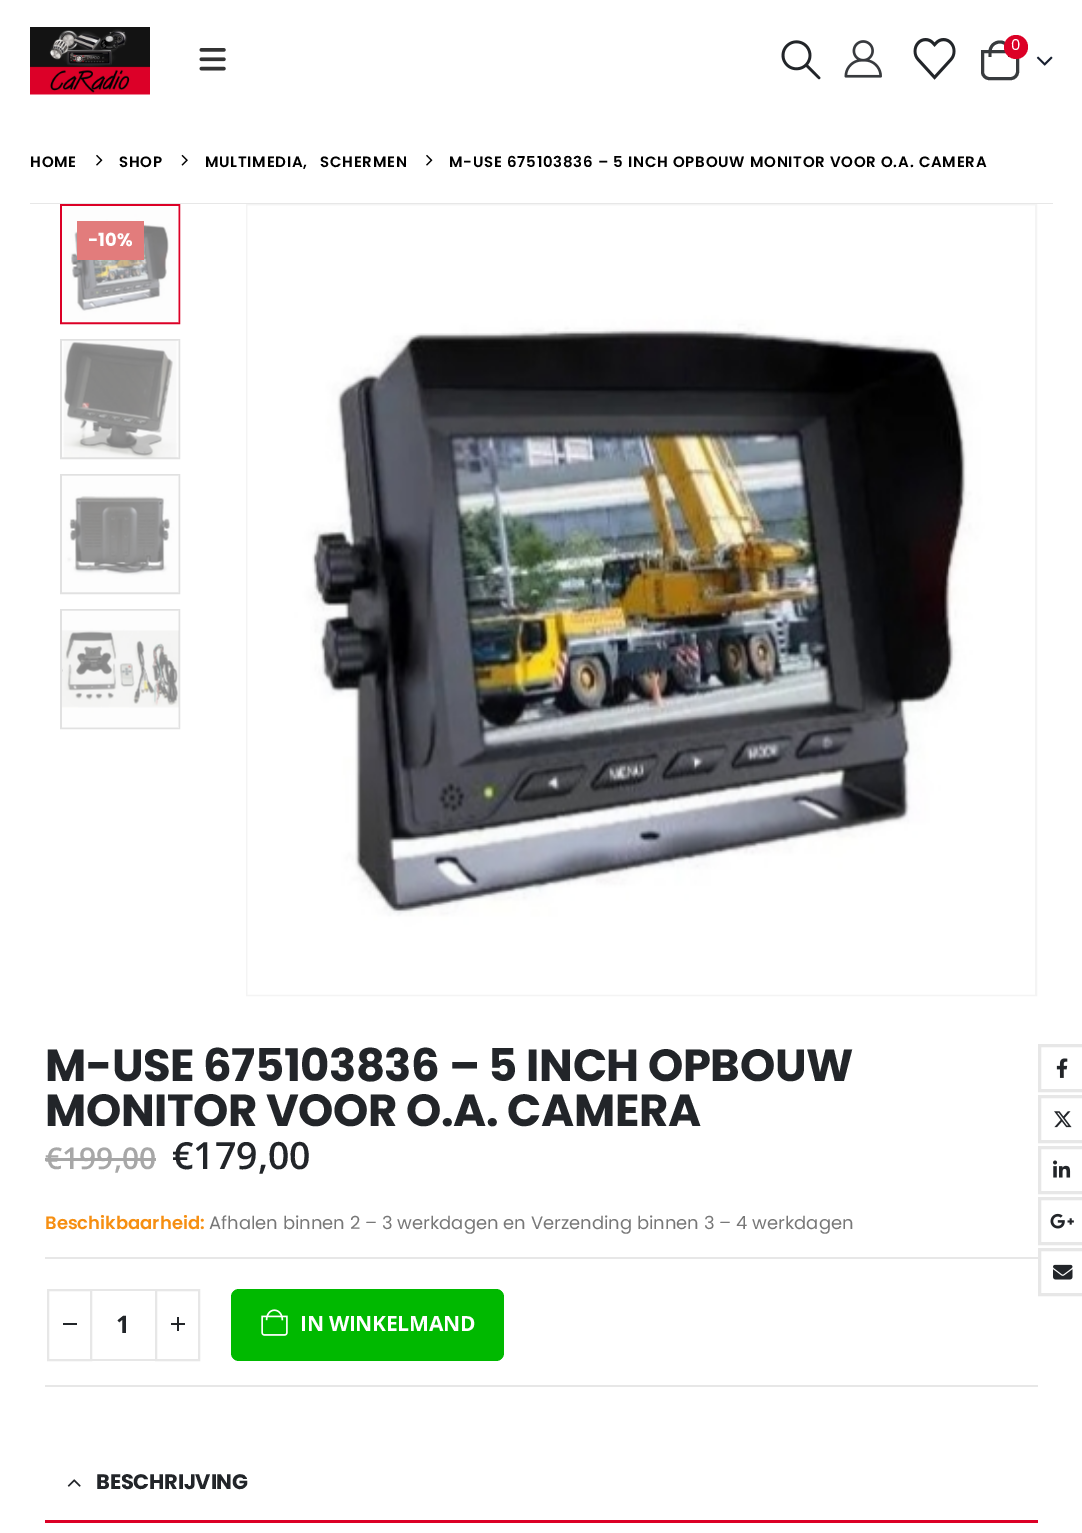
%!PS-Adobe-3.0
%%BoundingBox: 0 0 1082 1533
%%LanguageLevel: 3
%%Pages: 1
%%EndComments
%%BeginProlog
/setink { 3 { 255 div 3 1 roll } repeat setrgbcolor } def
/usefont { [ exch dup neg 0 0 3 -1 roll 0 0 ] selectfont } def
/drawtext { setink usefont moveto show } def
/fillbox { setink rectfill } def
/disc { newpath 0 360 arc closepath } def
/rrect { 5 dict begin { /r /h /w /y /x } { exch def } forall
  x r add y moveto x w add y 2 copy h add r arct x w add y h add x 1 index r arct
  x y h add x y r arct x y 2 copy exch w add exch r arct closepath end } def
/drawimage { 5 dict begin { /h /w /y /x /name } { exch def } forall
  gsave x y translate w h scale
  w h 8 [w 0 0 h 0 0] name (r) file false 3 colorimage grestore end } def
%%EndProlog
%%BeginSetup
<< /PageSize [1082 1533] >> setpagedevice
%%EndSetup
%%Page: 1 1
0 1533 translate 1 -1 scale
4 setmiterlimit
0 0 1082 1533 255 255 255 fillbox
(assets/img1.rgb) 30 27 120 68 drawimage
(assets/img2.rgb) 199 48 27 23 drawimage
(assets/img3.rgb) 781 40 40 40 drawimage
(assets/img4.rgb) 844 40 38 38 drawimage
(assets/img5.rgb) 913 38 43 42 drawimage
56 59 62 setink
3 setlinewidth
982.5 51.5 moveto 1017.5 51.5 lineto 1017.5 72 lineto 1017.5 75.5 1014.5 78.5 1011 78.5 curveto 989 78.5 lineto 985.5 78.5 982.5 75.5 982.5 72 curveto closepath stroke
1000 40.5 moveto 1006 40.5 1011 45.5 1011 52 curveto 1011 57 lineto 988.5 57 lineto 988.5 52 lineto 988.5 45.5 993.5 40.5 1000 40.5 curveto closepath 1000 43.5 moveto 1004.5 43.5 1008 47 1008 52 curveto 1008 57 lineto 991.5 57 lineto 991.5 52 lineto 991.5 47 995 43.5 1000 43.5 curveto closepath eofill
220 0 38 setink
1016 47 12 disc fill
(0) 1011 50 /Poppins-Regular 15 255 255 255 drawtext
(assets/img6.rgb) 1036 56 17 10 drawimage
30 203 1023 1 231 231 231 fillbox
/Poppins-SemiBold 15 usefont
0 0 0 setink
30 167 moveto 0.75 0 (HOME) ashow
(assets/img7.rgb) 96 154 7 12 drawimage
119 167 moveto 0.75 0 (SHOP) ashow
(assets/img8.rgb) 181 154 7 12 drawimage
205 167 moveto 0.75 0 (MULTIMEDIA,) ashow
320 167 moveto 0.75 0 (SCHERMEN) ashow
(assets/img7.rgb) 426 154 7 12 drawimage
449 167 moveto 0.75 0 (M-USE 675103836 – 5 INCH OPBOUW MONITOR VOOR O.A. CAMERA) ashow
250 250 250 setink
61 205 moveto 179 205 lineto 179 323 lineto 61 323 lineto closepath gsave fill grestore
220 0 38 setink
2 setlinewidth
stroke
(assets/img9.rgb) 62 206 117 117 drawimage
250 250 250 setink
61 340 moveto 179 340 lineto 179 458 lineto 61 458 lineto closepath gsave fill grestore
225 225 225 setink
stroke
(assets/img10.rgb) 62 340 117 118 drawimage
250 250 250 setink
61 475 moveto 179 475 lineto 179 593 lineto 61 593 lineto closepath gsave fill grestore
225 225 225 setink
stroke
(assets/img11.rgb) 62 475 117 118 drawimage
250 250 250 setink
61 610 moveto 179 610 lineto 179 728 lineto 61 728 lineto closepath gsave fill grestore
225 225 225 setink
stroke
(assets/img12.rgb) 62 610 117 118 drawimage
244 244 244 setink
247 205 789 790 rectstroke
(assets/img13.rgb) 247 205 788 790 drawimage
77 221 67 39 226 124 124 fillbox
(-10%) 88 246 /Poppins-Bold 18 255 255 255 drawtext
/Poppins-Bold 45 usefont
34 37 41 setink
45 1081 moveto -0.45 0 (M-USE 675103836 – 5 INCH OPBOUW) ashow
45 1126 moveto -0.45 0 (MONITOR VOOR O.A. CAMERA) ashow
231 231 231 setink
3 setlinewidth
1039.5 1045.5 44 45 rectstroke
(assets/img14.rgb) 1056 1058 12 20 drawimage
1039.5 1096.5 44 45 rectstroke
(assets/img15.rgb) 1054 1111 18 17 drawimage
1039.5 1147.5 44 45 rectstroke
(assets/img16.rgb) 1053 1160 18 18 drawimage
1039.5 1198.5 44 45 rectstroke
(assets/img17.rgb) 1050 1213 24 16 drawimage
1039.5 1249.5 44 45 rectstroke
(assets/img18.rgb) 1053 1264 20 16 drawimage
(€199,00) 45 1169 /OpenSans-SemiBold 30 167 167 167 drawtext
45 1158 111 3 167 167 167 fillbox
(€179,00) 172 1169 /OpenSans-SemiBold 37.5 34 37 41 drawtext
(Beschikbaarheid:) 45 1229 /Poppins-SemiBold 18 246 143 18 drawtext
(Afhalen binnen 2 – 3 werkdagen en Verzending binnen 3 – 4 werkdagen) 209 1229 /Poppins-Regular 18 119 119 119 drawtext
45 1257 993 2 231 231 231 fillbox
45 1385 993 2 231 231 231 fillbox
90 1289 66 2 231 231 231 fillbox
90 1359 66 2 231 231 231 fillbox
2 setlinewidth
48 1290 43 70 rectstroke
63 1323 14 2 34 37 41 fillbox
(1) 116 1333 /OpenSans-Bold 24 34 37 41 drawtext
231 231 231 setink
156 1290 43 70 rectstroke
171 1323 14 2 34 37 41 fillbox
177 1317 2 14 34 37 41 fillbox
0 185 0 setink
231 1289 273 72 8 rrect fill
(assets/img19.rgb) 261 1309 27 27 drawimage
/OpenSans-Bold 21 usefont
255 255 255 setink
300 1331 moveto -0.25 0 (IN WINKELMAND) ashow
45 1520 993 3 220 0 38 fillbox
(assets/img20.rgb) 67 1479 14 8 drawimage
/Poppins-Bold 21 usefont
34 37 41 setink
96 1489 moveto -0.25 0 (BESCHRIJVING) ashow
showpage
%%EOF
